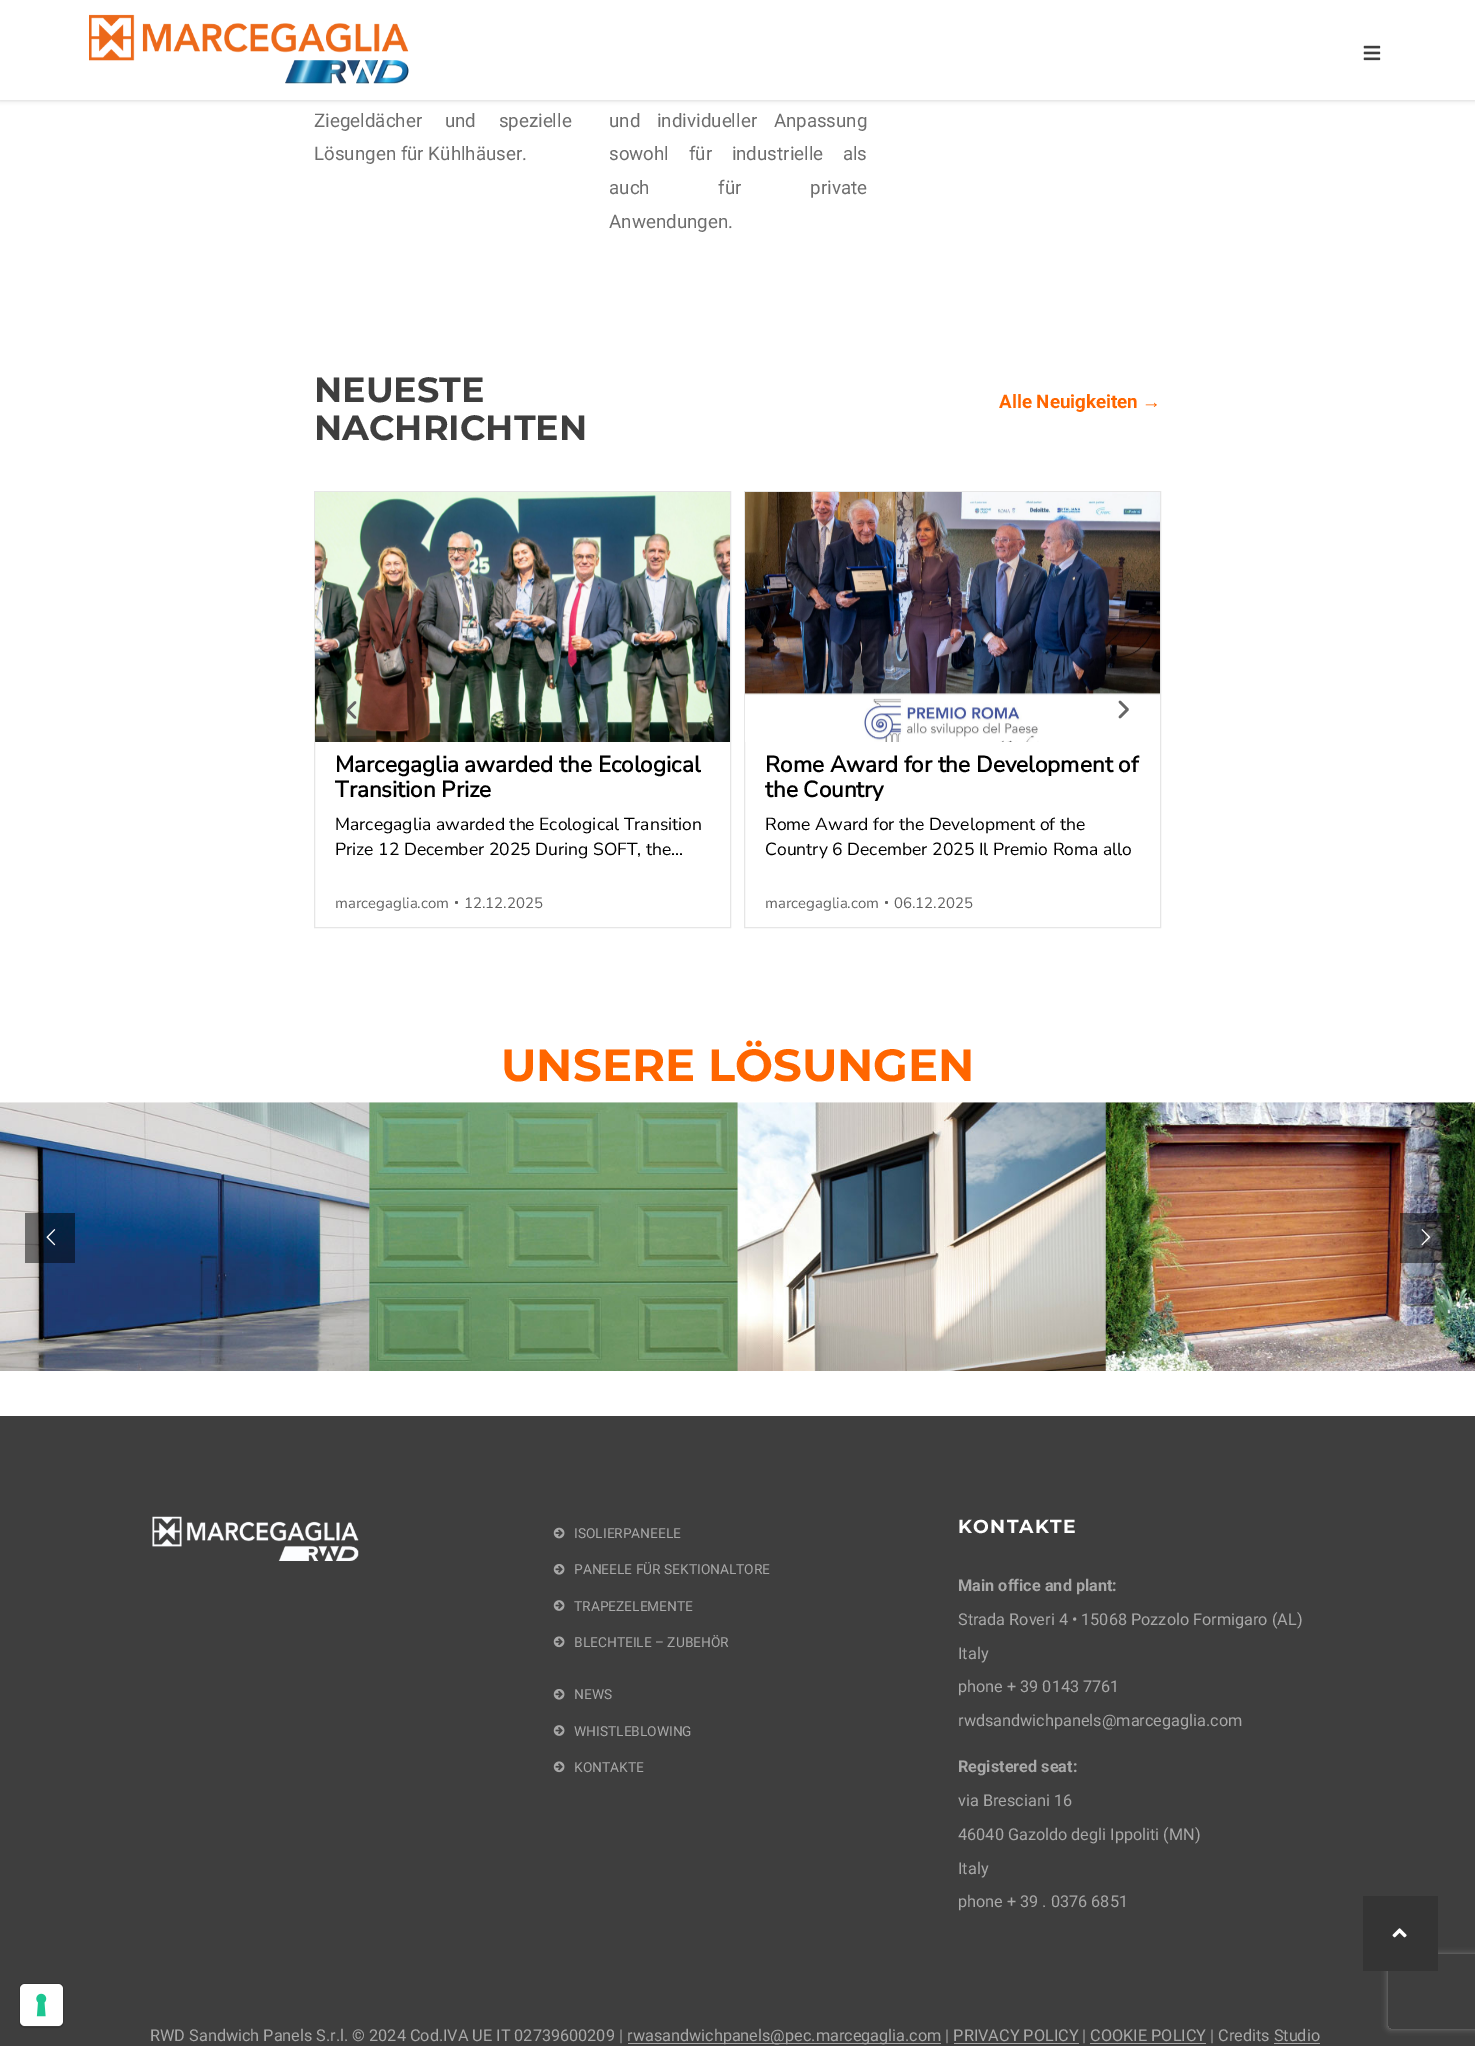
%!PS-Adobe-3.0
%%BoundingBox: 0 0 1475 2046
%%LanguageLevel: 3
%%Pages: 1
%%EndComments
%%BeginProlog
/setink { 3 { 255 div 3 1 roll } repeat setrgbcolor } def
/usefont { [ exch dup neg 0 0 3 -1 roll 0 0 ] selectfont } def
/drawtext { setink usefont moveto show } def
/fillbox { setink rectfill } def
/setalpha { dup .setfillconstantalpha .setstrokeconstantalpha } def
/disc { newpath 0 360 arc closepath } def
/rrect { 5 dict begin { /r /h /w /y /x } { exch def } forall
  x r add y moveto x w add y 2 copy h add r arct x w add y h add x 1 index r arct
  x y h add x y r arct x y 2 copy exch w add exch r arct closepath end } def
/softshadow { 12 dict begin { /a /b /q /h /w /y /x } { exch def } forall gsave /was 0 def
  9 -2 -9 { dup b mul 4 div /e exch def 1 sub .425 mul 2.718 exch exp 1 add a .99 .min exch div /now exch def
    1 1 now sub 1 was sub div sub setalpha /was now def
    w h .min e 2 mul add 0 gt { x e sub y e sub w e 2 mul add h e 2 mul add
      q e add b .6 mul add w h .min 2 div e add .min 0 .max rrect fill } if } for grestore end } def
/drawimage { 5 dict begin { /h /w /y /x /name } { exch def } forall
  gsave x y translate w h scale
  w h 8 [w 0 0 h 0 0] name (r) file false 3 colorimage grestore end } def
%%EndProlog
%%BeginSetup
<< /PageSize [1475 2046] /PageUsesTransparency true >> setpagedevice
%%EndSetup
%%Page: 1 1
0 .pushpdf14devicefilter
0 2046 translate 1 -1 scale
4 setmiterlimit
0 0 1475 2046 255 255 255 fillbox
0 1416 1475 630 62 62 62 fillbox
53 53 53 setink
19.5 1983.5 44 44 5.5 rrect stroke
255 255 255 setink
20 1984 43 42 5 rrect fill
(assets/img1.rgb) 36 1993 11 24 drawimage
0 0 0 setink
0 0 1475 100 0 2.5 0.2 softshadow
0 0 1475 100 255 255 255 fillbox
(assets/img2.rgb) 89 14 320 70 drawimage
(assets/img3.rgb) 1363 45 18 16 drawimage
/Roboto-Regular 18.75 usefont
110 110 110 setink
314 127 moveto 18 0 32 (Ziegeldächer und spezielle) widthshow
(Lösungen für Kühlhäuser.) 314 160 /Roboto-Regular 18.75 110 110 110 drawtext
609 127 moveto 12 0 32 (und individueller Anpassung) widthshow
609 160 moveto 15 0 32 (sowohl für industrielle als) widthshow
609 194 moveto 64 0 32 (auch für private) widthshow
(Anwendungen.) 609 228 /Roboto-Regular 18.75 110 110 110 drawtext
(NEUESTE) 314 402 /Montserrat-Bold 35 62 62 62 drawtext
(NACHRICHTEN) 314 440 /Montserrat-Bold 35 62 62 62 drawtext
(Alle Neuigkeiten) 999 408 /Roboto-Bold 18.75 255 102 0 drawtext
(→) 1142 408 /LiberationSerif-Bold 18.75 255 102 0 drawtext
230 230 230 setink
314.5 491.5 416 436 rectstroke
(assets/img4.rgb) 315 492 415 250 drawimage
102 102 102 setink
2.5 setlinewidth
1 setlinecap
1 setlinejoin
355 717.5 moveto 347.5 710 lineto 355 702.5 lineto stroke
230 230 230 setink
1 setlinewidth
0 setlinecap
0 setlinejoin
744.5 491.5 416 436 rectstroke
(assets/img5.rgb) 745 492 415 250 drawimage
102 102 102 setink
2.5 setlinewidth
1 setlinecap
1 setlinejoin
1120 702 moveto 1127.5 709.5 lineto 1120 717 lineto stroke
(Marcegaglia awarded the Ecological) 335 772 /NunitoSans-Bold 22.5 0 0 0 drawtext
(Transition Prize) 335 797 /NunitoSans-Bold 22.5 0 0 0 drawtext
(Marcegaglia awarded the Ecological Transition) 335 830 /NunitoSans-Regular 17.5 0 0 0 drawtext
(Prize 12 December 2025 During SOFT, the…) 335 855 /NunitoSans-Regular 17.5 0 0 0 drawtext
(marcegaglia.com) 335 908 /NunitoSans-Regular 15 97 97 97 drawtext
456.5 902.5 1.5 disc fill
(12.12.2025) 464 908 /NunitoSans-Regular 15 97 97 97 drawtext
(Rome Award for the Development of) 765 772 /NunitoSans-Bold 22.5 0 0 0 drawtext
(the Country) 765 797 /NunitoSans-Bold 22.5 0 0 0 drawtext
(Rome Award for the Development of the) 765 830 /NunitoSans-Regular 17.5 0 0 0 drawtext
(Country 6 December 2025 Il Premio Roma allo) 765 855 /NunitoSans-Regular 17.5 0 0 0 drawtext
(marcegaglia.com) 765 908 /NunitoSans-Regular 15 97 97 97 drawtext
886.5 902.5 1.5 disc fill
(06.12.2025) 894 908 /NunitoSans-Regular 15 97 97 97 drawtext
(UNSERE LÖSUNGEN) 501 1081 /Montserrat-Bold 45 255 102 0 drawtext
(assets/img6.rgb) 0 1102 1475 269 drawimage
0.5 setalpha
25 1213 50 50 0 0 0 fillbox
1 setalpha
(assets/img7.rgb) 46 1229 10 17 drawimage
0.5 setalpha
1400 1213 50 50 0 0 0 fillbox
1 setalpha
(assets/img8.rgb) 1421 1229 10 17 drawimage
(assets/img9.rgb) 152 1516 207 45 drawimage
(assets/img10.rgb) 553 1527 12 12 drawimage
(ISOLIERPANEELE) 574 1538 /Roboto-Regular 13.75 168 168 168 drawtext
(assets/img11.rgb) 553 1564 12 11 drawimage
(PANEELE FÜR SEKTIONALTORE) 574 1574 /Roboto-Regular 13.75 168 168 168 drawtext
(assets/img12.rgb) 553 1600 12 11 drawimage
(TRAPEZELEMENTE) 574 1611 /Roboto-Regular 13.75 168 168 168 drawtext
(assets/img13.rgb) 553 1636 12 12 drawimage
(BLECHTEILE – ZUBEHÖR) 574 1647 /Roboto-Regular 13.75 168 168 168 drawtext
(assets/img11.rgb) 553 1689 12 11 drawimage
(NEWS) 574 1699 /Roboto-Regular 13.75 168 168 168 drawtext
(assets/img12.rgb) 553 1725 12 11 drawimage
(WHISTLEBLOWING) 574 1736 /Roboto-Regular 13.75 168 168 168 drawtext
(assets/img13.rgb) 553 1761 12 12 drawimage
(KONTAKTE) 574 1772 /Roboto-Regular 13.75 168 168 168 drawtext
/Montserrat-Bold 18.75 usefont
255 255 255 setink
958 1533 moveto 1.25 0 (KONTAKTE) ashow
(Main office and plant:) 958 1591 /Roboto-Bold 16.25 168 168 168 drawtext
(Strada Roveri 4 • 15068 Pozzolo Formigaro \(AL\)) 958 1625 /Roboto-Regular 16.25 168 168 168 drawtext
(Italy) 958 1659 /Roboto-Regular 16.25 168 168 168 drawtext
(phone + 39 0143 7761) 958 1692 /Roboto-Regular 16.25 168 168 168 drawtext
(rwdsandwichpanels@marcegaglia.com) 958 1726 /Roboto-Regular 16.25 168 168 168 drawtext
(Registered seat:) 958 1772 /Roboto-Bold 16.25 168 168 168 drawtext
(via Bresciani 16) 958 1806 /Roboto-Regular 16.25 168 168 168 drawtext
(46040 Gazoldo degli Ippoliti \(MN\)) 958 1840 /Roboto-Regular 16.25 168 168 168 drawtext
(Italy) 958 1874 /Roboto-Regular 16.25 168 168 168 drawtext
(phone + 39 . 0376 6851) 958 1907 /Roboto-Regular 16.25 168 168 168 drawtext
(RWD Sandwich Panels S.r.l. © 2024 Cod.IVA UE IT 02739600209 |) 150 2041 /Roboto-Regular 16.25 168 168 168 drawtext
628 2043 313 1 168 168 168 fillbox
(rwasandwichpanels@pec.marcegaglia.com | PRIVACY POLICY | COOKIE POLICY | Credits Studio) 627 2041 /Roboto-Regular 16.25 168 168 168 drawtext
954 2043 125 1 168 168 168 fillbox
1090 2043 116 1 168 168 168 fillbox
1274 2043 46 1 168 168 168 fillbox
gsave
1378 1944 moveto 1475 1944 lineto 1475 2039 lineto 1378 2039 lineto closepath 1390.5 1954 moveto 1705.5 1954 lineto 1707 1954 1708 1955 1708 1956.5 curveto 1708 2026.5 lineto 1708 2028 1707 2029 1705.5 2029 curveto 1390.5 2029 lineto 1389 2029 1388 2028 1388 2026.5 curveto 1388 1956.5 lineto 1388 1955 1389 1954 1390.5 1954 curveto closepath eoclip newpath
128 128 128 setink
1388 1954 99 75 2.5 3 1 softshadow
grestore
1363 1896 75 75 52 52 52 fillbox
(assets/img14.rgb) 1392 1928 15 10 drawimage
.poppdf14devicefilter showpage
%%EOF
